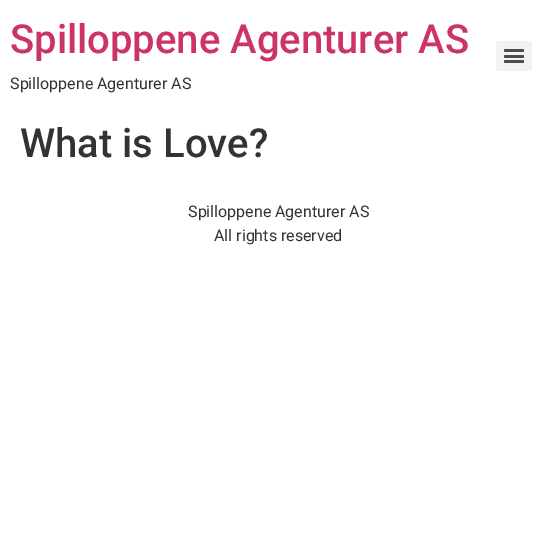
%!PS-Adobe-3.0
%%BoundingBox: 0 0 557 547
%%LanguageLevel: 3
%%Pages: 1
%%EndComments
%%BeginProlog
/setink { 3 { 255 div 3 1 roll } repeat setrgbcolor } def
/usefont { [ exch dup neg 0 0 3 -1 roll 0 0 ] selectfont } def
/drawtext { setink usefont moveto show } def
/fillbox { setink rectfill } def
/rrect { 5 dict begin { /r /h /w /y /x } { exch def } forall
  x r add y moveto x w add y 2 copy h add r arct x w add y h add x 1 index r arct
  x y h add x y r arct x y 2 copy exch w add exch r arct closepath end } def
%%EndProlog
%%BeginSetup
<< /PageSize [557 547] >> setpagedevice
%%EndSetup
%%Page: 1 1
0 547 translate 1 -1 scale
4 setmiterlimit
0 0 557 547 255 255 255 fillbox
(Spilloppene Agenturer AS) 10 53 /Roboto-Medium 40 204 51 102 drawtext
(Spilloppene Agenturer AS) 10 89 /Roboto-Regular 16 51 51 51 drawtext
242 242 242 setink
496 41 36 30 3 rrect fill
73 76 79 setink
504 55 20 3 1.5 rrect fill
504 49 20 3 1.5 rrect fill
504 60 20 3 1.5 rrect fill
(What is Love?) 20 157 /Roboto-Medium 40 51 51 51 drawtext
(Spilloppene Agenturer AS) 188 217 /Roboto-Regular 16 51 51 51 drawtext
(All rights reserved) 214 241 /Roboto-Regular 16 51 51 51 drawtext
showpage
%%EOF
